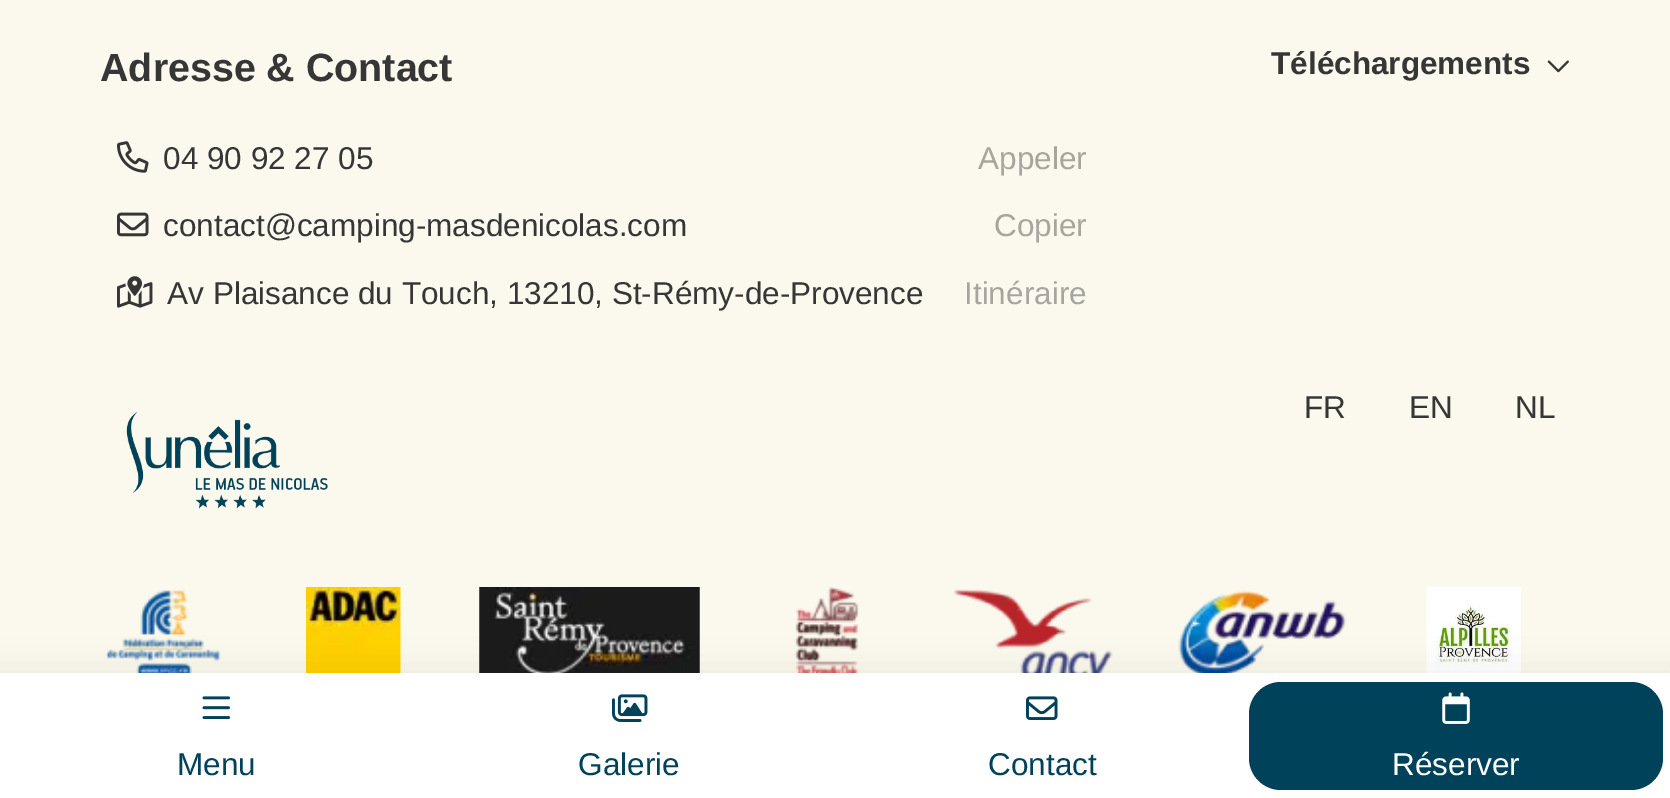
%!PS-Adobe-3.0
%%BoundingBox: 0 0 1670 798
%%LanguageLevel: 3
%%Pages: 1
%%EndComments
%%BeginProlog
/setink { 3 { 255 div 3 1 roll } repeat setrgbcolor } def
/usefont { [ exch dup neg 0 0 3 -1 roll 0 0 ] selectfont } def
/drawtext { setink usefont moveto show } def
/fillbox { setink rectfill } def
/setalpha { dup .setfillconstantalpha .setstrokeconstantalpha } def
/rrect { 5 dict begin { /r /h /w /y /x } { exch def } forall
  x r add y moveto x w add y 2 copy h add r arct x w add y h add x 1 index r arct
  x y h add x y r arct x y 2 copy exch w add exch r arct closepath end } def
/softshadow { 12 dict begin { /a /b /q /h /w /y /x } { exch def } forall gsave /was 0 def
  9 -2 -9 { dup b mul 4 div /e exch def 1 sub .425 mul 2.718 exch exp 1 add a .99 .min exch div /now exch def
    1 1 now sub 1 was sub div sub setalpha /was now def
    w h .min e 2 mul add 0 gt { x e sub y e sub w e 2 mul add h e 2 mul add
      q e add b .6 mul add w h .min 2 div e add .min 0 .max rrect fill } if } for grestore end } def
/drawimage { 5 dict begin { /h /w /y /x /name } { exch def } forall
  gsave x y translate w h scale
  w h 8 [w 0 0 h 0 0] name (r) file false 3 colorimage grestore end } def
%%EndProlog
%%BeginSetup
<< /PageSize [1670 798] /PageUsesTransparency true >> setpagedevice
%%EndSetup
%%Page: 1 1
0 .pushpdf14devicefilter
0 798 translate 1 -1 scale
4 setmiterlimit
0 0 1670 798 251 249 237 fillbox
(Adresse & Contact) 100 81 /LiberationSans-Bold 39.4 54 54 54 drawtext
(assets/img1.rgb) 117 141 32 32 drawimage
(04 90 92 27 05) 163 169 /LiberationSans-Regular 31.5 54 54 54 drawtext
(Appeler) 978 169 /LiberationSans-Regular 31.5 166 165 158 drawtext
(assets/img2.rgb) 117 212 32 25 drawimage
(contact@camping-masdenicolas.com) 163 236 /LiberationSans-Regular 31.5 54 54 54 drawtext
(Copier) 994 236 /LiberationSans-Regular 31.5 166 165 158 drawtext
(assets/img3.rgb) 117 276 36 32 drawimage
(Av Plaisance du Touch, 13210, St-Rémy-de-Provence) 167 304 /LiberationSans-Regular 31.5 54 54 54 drawtext
(Itinéraire) 964 304 /LiberationSans-Regular 31.5 166 165 158 drawtext
(Téléchargements) 1271 74 /LiberationSans-Bold 31.5 54 54 54 drawtext
(assets/img4.rgb) 1547 60 22 13 drawimage
(FR) 1304 418 /LiberationSans-Regular 31.5 54 54 54 drawtext
(EN) 1409 418 /LiberationSans-Regular 31.5 54 54 54 drawtext
(NL) 1515 418 /LiberationSans-Regular 31.5 54 54 54 drawtext
(assets/img5.rgb) 126 411 202 98 drawimage
(assets/img6.rgb) 106 590 115 83 drawimage
(assets/img7.rgb) 306 587 95 86 drawimage
(assets/img8.rgb) 479 587 221 86 drawimage
(assets/img9.rgb) 795 587 64 86 drawimage
(assets/img10.rgb) 953 589 160 84 drawimage
(assets/img11.rgb) 1178 590 169 83 drawimage
(assets/img12.rgb) 1426 587 95 86 drawimage
0 0 0 setink
-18 666 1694 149 0 17 0.05 softshadow
0 673 1670 125 255 255 255 fillbox
(assets/img13.rgb) 202 696 28 23 drawimage
(Menu) 177 775 /LiberationSans-Regular 31.5 0 66 89 drawtext
(assets/img14.rgb) 612 694 36 28 drawimage
(Galerie) 578 775 /LiberationSans-Regular 31.5 0 66 89 drawtext
(assets/img15.rgb) 1026 696 32 24 drawimage
(Contact) 988 775 /LiberationSans-Regular 31.5 0 66 89 drawtext
1249 682 414 108 32 rrect fill
(assets/img16.rgb) 1442 692 28 32 drawimage
(Réserver) 1392 775 /LiberationSans-Regular 31.5 255 255 255 drawtext
.poppdf14devicefilter showpage
%%EOF
